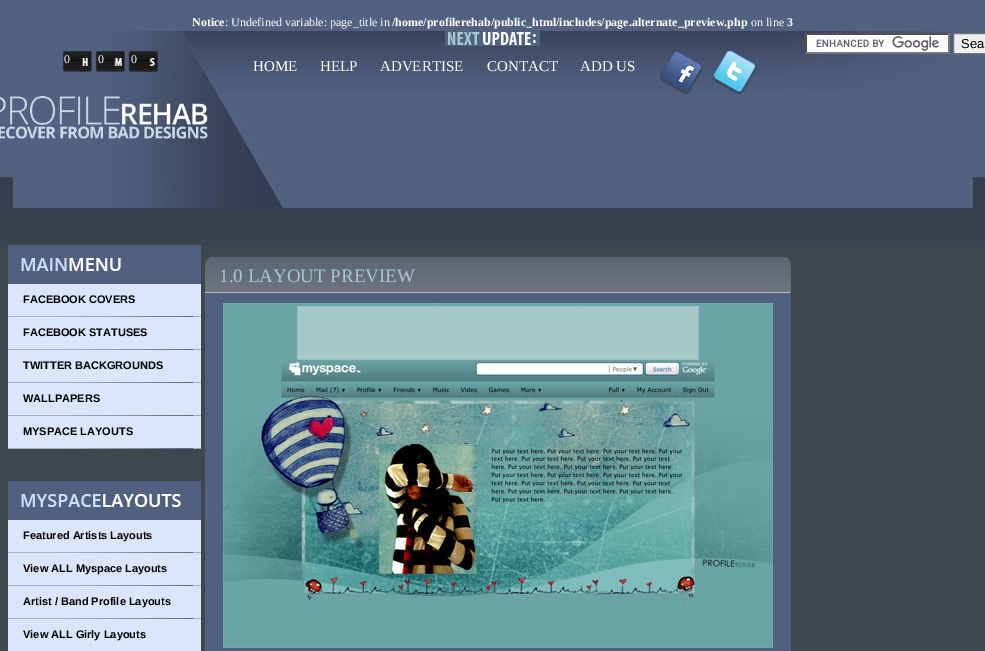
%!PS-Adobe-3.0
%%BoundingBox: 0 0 985 651
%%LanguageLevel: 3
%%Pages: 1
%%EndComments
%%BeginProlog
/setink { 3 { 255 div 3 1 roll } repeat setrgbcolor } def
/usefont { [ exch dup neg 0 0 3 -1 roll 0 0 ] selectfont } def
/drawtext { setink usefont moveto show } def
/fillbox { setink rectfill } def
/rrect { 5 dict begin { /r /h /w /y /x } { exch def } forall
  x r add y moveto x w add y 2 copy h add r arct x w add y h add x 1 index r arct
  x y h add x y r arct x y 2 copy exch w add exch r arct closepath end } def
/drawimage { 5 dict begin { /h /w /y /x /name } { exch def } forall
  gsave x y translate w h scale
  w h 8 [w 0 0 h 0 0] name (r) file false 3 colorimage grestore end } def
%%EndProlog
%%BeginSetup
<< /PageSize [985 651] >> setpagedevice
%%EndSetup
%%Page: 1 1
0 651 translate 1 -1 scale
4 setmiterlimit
0 0 985 651 64 70 77 fillbox
(assets/img1.rgb) 0 0 985 247 drawimage
(assets/img2.rgb) 8 0 969 247 drawimage
(Notice) 192 26 /LiberationSerif-Bold 12 255 255 255 drawtext
(: Undefined variable: page_title in) 225 26 /LiberationSerif-Regular 12 255 255 255 drawtext
(/home/profilerehab/public_html/includes/page.alternate_preview.php) 392 26 /LiberationSerif-Bold 12 255 255 255 drawtext
(on line) 751 26 /LiberationSerif-Regular 12 255 255 255 drawtext
(3) 787 26 /LiberationSerif-Bold 12 255 255 255 drawtext
(assets/img10.rgb) 13 31 960 177 drawimage
805 33 145 21 255 255 255 fillbox
(assets/img3.rgb) 816 36 123 15 drawimage
79 79 79 setink
805 33 moveto 950 33 lineto 948 35 lineto 807 35 lineto closepath fill
118 118 118 setink
950 33 moveto 950 54 lineto 948 52 lineto 948 35 lineto closepath fill
950 54 moveto 805 54 lineto 807 52 lineto 948 52 lineto closepath fill
79 79 79 setink
805 54 moveto 805 33 lineto 807 35 lineto 807 52 lineto closepath fill
239 239 239 setink
953.5 33.5 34 20 1.5 rrect gsave fill grestore
118 118 118 setink
stroke
(Sea) 961 48 /LiberationSans-Regular 13 0 0 0 drawtext
(assets/img4.rgb) 8 245 193 39 drawimage
(assets/img5.rgb) 8 316 193 133 drawimage
8 284 193 32 219 229 251 fillbox
(FACEBOOK COVERS) 23 303 /LiberationSans-Bold 11 0 0 0 drawtext
8 317 193 32 219 229 251 fillbox
(FACEBOOK STATUSES) 23 336 /LiberationSans-Bold 11 0 0 0 drawtext
8 350 193 32 219 229 251 fillbox
(TWITTER BACKGROUNDS) 23 369 /LiberationSans-Bold 11 0 0 0 drawtext
8 383 193 32 219 229 251 fillbox
(WALLPAPERS) 23 402 /LiberationSans-Bold 11 0 0 0 drawtext
8 416 193 32 219 229 251 fillbox
(MYSPACE LAYOUTS) 23 435 /LiberationSans-Bold 11 0 0 0 drawtext
(assets/img6.rgb) 8 481 193 39 drawimage
(assets/img7.rgb) 8 552 193 67 drawimage
8 520 193 32 219 229 251 fillbox
(Featured Artists Layouts) 23 539 /LiberationSans-Bold 11 0 0 0 drawtext
8 553 193 32 219 229 251 fillbox
(View ALL Myspace Layouts) 23 572 /LiberationSans-Bold 11 0 0 0 drawtext
8 586 193 32 219 229 251 fillbox
(Artist / Band Profile Layouts) 23 605 /LiberationSans-Bold 11 0 0 0 drawtext
8 619 193 32 219 229 251 fillbox
(View ALL Girly Layouts) 23 638 /LiberationSans-Bold 11 0 0 0 drawtext
(assets/img8.rgb) 204 257 587 36 drawimage
(1.0 LAYOUT PREVIEW) 219 282 /LiberationSerif-Regular 19 169 199 213 drawtext
205 293 586 358 81 96 127 fillbox
(assets/img9.rgb) 223 303 550 345 drawimage
(assets/img11.rgb) 445 31 95 15 drawimage
(assets/img12.rgb) 62 51 30 21 drawimage
(0) 64 63 /LiberationSerif-Regular 12 255 255 255 drawtext
(assets/img13.rgb) 95 51 30 21 drawimage
(0) 98 63 /LiberationSerif-Regular 12 255 255 255 drawtext
(assets/img14.rgb) 128 51 30 21 drawimage
(0) 131 63 /LiberationSerif-Regular 12 255 255 255 drawtext
(HOME) 253 71 /LiberationSerif-Regular 15 255 255 255 drawtext
(HELP) 320 71 /LiberationSerif-Regular 15 255 255 255 drawtext
(ADVERTISE) 380 71 /LiberationSerif-Regular 15 255 255 255 drawtext
(CONTACT) 487 71 /LiberationSerif-Regular 15 255 255 255 drawtext
(ADD US) 580 71 /LiberationSerif-Regular 15 255 255 255 drawtext
(assets/img15.rgb) 659 51 44 44 drawimage
(assets/img16.rgb) 712 51 45 44 drawimage
(assets/img17.rgb) 0 96 208 43 drawimage
showpage
%%EOF
